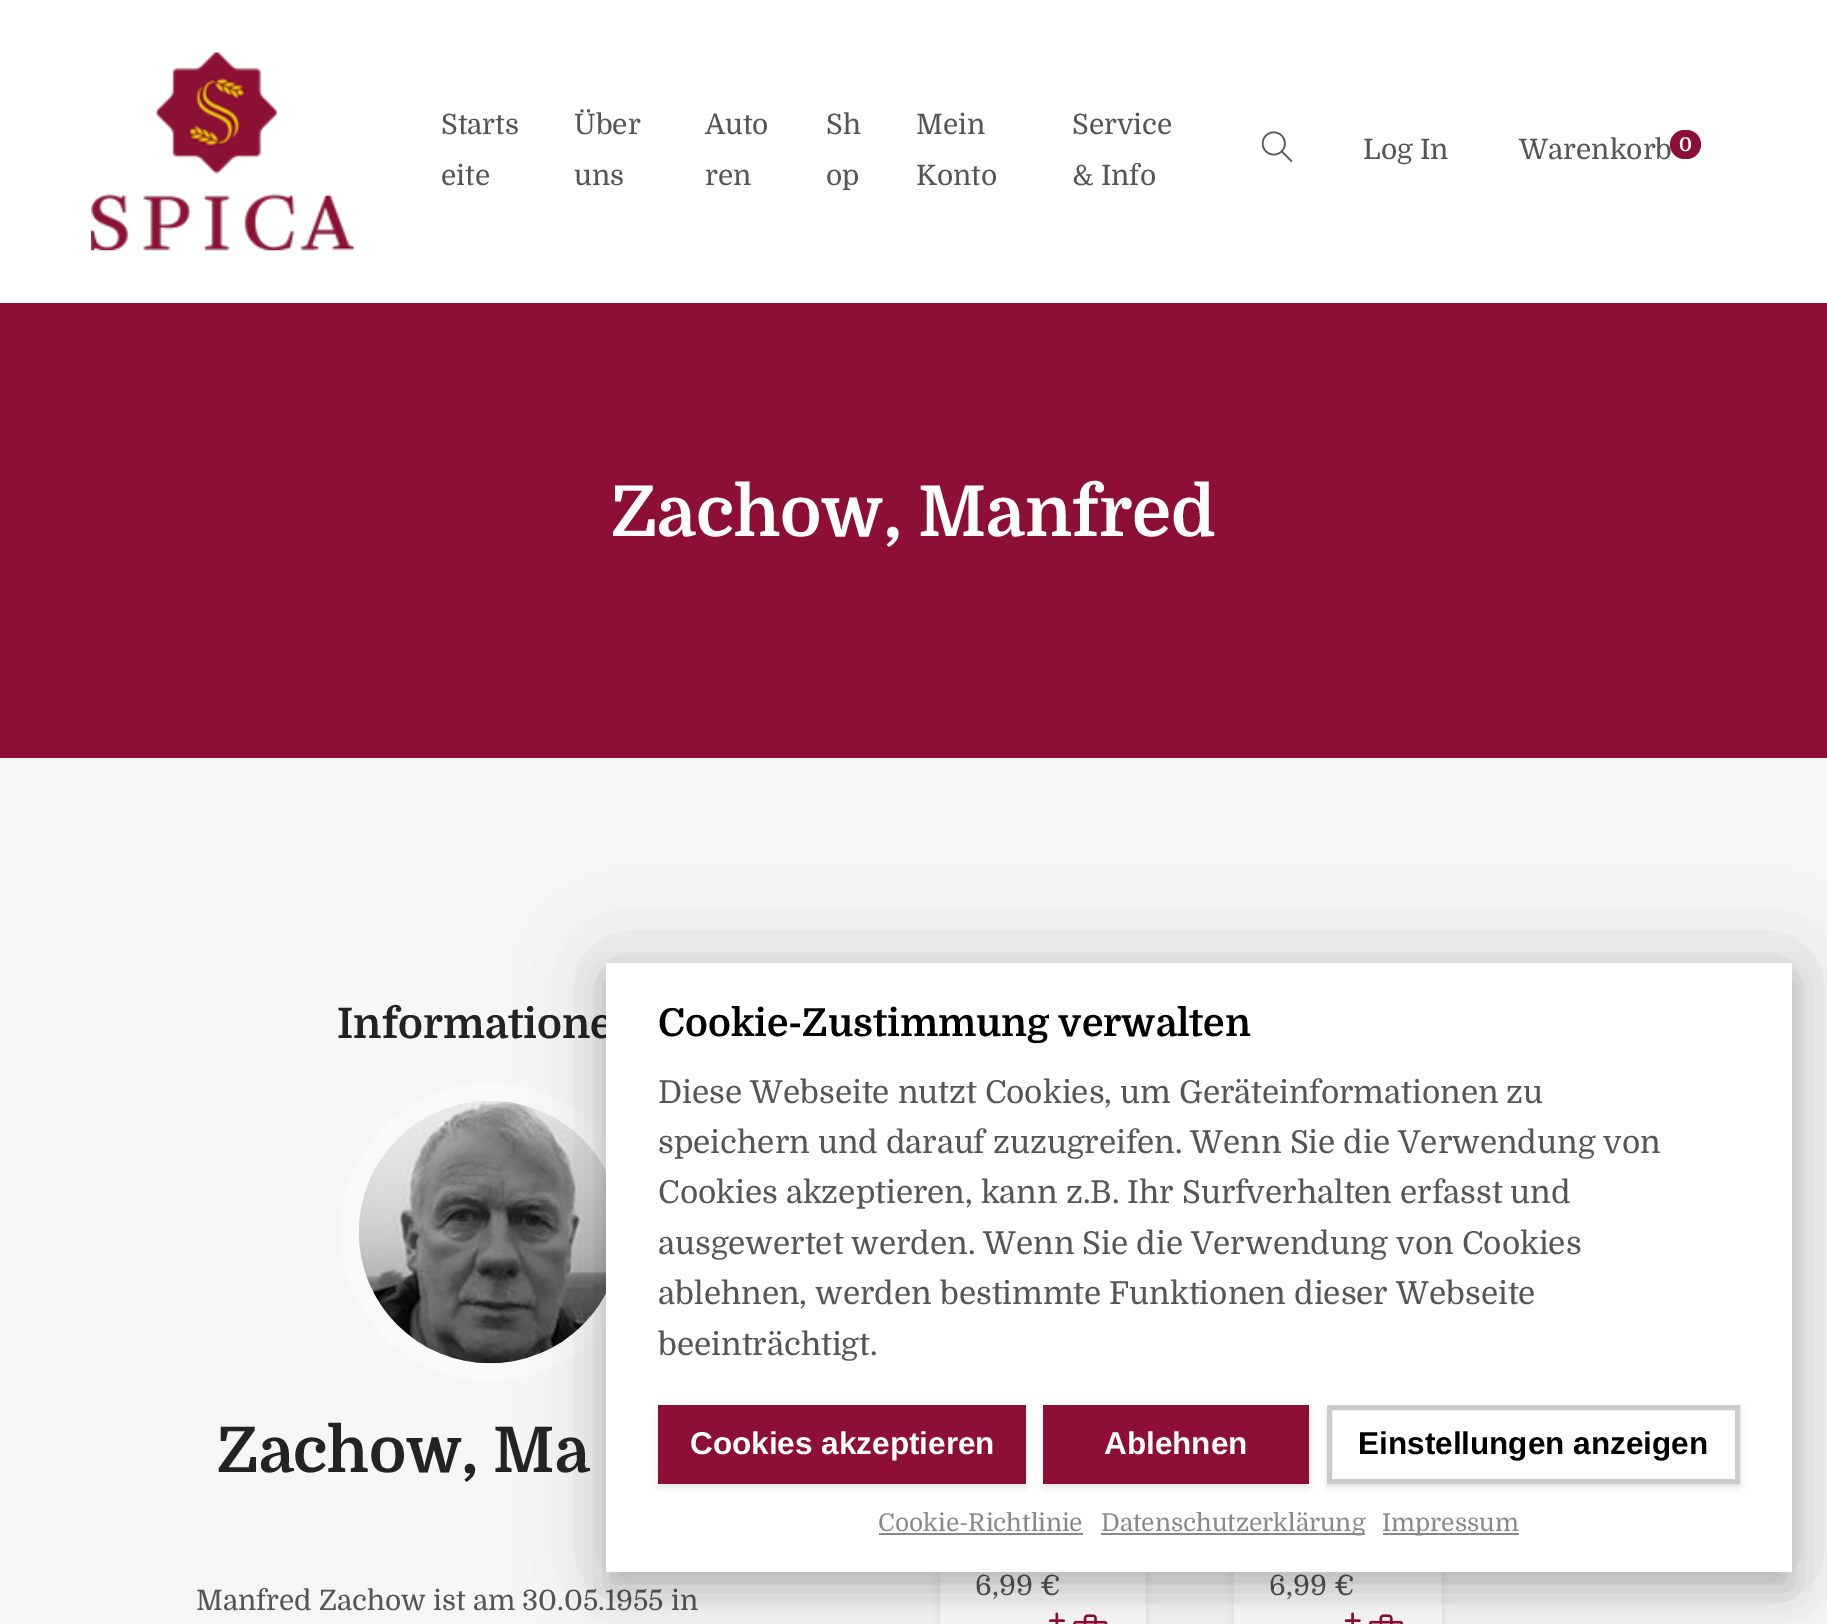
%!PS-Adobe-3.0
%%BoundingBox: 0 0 1827 1624
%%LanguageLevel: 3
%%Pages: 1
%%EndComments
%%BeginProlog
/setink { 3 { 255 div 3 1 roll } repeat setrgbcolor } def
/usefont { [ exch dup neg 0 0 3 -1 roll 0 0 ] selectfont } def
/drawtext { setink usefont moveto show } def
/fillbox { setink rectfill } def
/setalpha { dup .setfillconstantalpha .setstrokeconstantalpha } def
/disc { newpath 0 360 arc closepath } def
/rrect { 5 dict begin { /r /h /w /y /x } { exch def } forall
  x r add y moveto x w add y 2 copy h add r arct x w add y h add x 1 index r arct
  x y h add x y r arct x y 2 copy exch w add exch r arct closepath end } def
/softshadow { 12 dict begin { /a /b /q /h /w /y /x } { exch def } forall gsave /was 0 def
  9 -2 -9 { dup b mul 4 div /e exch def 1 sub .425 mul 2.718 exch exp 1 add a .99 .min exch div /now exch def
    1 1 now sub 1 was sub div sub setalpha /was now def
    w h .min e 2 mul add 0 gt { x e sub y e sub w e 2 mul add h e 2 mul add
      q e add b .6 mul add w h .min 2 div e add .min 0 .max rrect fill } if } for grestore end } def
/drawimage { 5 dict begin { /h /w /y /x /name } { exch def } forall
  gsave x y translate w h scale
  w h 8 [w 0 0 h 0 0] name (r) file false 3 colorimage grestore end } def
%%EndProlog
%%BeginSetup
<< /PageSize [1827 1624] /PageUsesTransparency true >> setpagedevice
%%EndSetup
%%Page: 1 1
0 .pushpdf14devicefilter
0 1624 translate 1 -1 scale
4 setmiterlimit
0 0 1827 1624 246 246 246 fillbox
0 0 1827 303 255 255 255 fillbox
(assets/img1.rgb) 91 52 263 199 drawimage
(Starts) 441 134 /Domine-Regular 28 85 85 85 drawtext
(eite) 441 185 /Domine-Regular 28 85 85 85 drawtext
(Über) 574 134 /Domine-Regular 28 85 85 85 drawtext
(uns) 574 185 /Domine-Regular 28 85 85 85 drawtext
(Auto) 705 134 /Domine-Regular 28 85 85 85 drawtext
(ren) 705 185 /Domine-Regular 28 85 85 85 drawtext
(Sh) 826 134 /Domine-Regular 28 85 85 85 drawtext
(op) 826 185 /Domine-Regular 28 85 85 85 drawtext
(Mein) 916 134 /Domine-Regular 28 85 85 85 drawtext
(Konto) 916 185 /Domine-Regular 28 85 85 85 drawtext
(Service) 1072 134 /Domine-Regular 28 85 85 85 drawtext
(& Info) 1072 185 /Domine-Regular 28 85 85 85 drawtext
(assets/img2.rgb) 1261 131 32 32 drawimage
(Log In) 1363 159 /Domine-Regular 28 85 85 85 drawtext
(Warenkorb) 1519 159 /Domine-Regular 28 85 85 85 drawtext
141 15 53 setink
1670 130 31 29 14.5 rrect fill
(0) 1679 151 /Domine-Bold 19 255 255 255 drawtext
0 303 1827 455 141 15 53 fillbox
(Zachow, Manfred) 611 536 /Domine-Bold 70 255 255 255 drawtext
(Informatione) 337 1038 /Domine-Bold 42 35 35 35 drawtext
249 249 249 setink
18 setlinewidth
490 1232 140 disc stroke
(assets/img3.rgb) 359 1101 247 263 drawimage
(Zachow, Ma) 217 1472 /Domine-Bold 63 35 35 35 drawtext
(Manfred Zachow ist am 30.05.1955 in) 196 1610 /Domine-Regular 28 85 85 85 drawtext
0 0 0 setink
940 1111 206 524 0 3.5 0.08 softshadow
940 1572 206 52 251 251 251 fillbox
(6,99 €) 975 1595 /Domine-Regular 28 85 85 85 drawtext
(assets/img4.rgb) 1049 1612 16 12 drawimage
(assets/img5.rgb) 1073 1614 35 10 drawimage
0 0 0 setink
1234 1111 208 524 0 3.5 0.08 softshadow
1234 1572 208 52 251 251 251 fillbox
(6,99 €) 1269 1595 /Domine-Regular 28 85 85 85 drawtext
(assets/img6.rgb) 1344 1612 17 12 drawimage
(assets/img7.rgb) 1368 1614 36 10 drawimage
0 0 0 setink
606 963 1186 609 0 44 0.15 softshadow
606 980 1186 609 0 17.5 0.19 softshadow
606 963 1186 609 255 255 255 fillbox
(Cookie-Zustimmung verwalten) 658 1036 /Domine-Bold 38.5 0 0 0 drawtext
(Diese Webseite nutzt Cookies, um Geräteinformationen zu) 658 1103 /Domine-Regular 31.5 85 85 85 drawtext
(speichern und darauf zuzugreifen. Wenn Sie die Verwendung von) 658 1153 /Domine-Regular 31.5 85 85 85 drawtext
(Cookies akzeptieren, kann z.B. Ihr Surfverhalten erfasst und) 658 1203 /Domine-Regular 31.5 85 85 85 drawtext
(ausgewertet werden. Wenn Sie die Verwendung von Cookies) 658 1254 /Domine-Regular 31.5 85 85 85 drawtext
(ablehnen, werden bestimmte Funktionen dieser Webseite) 658 1304 /Domine-Regular 31.5 85 85 85 drawtext
(beeinträchtigt.) 658 1355 /Domine-Regular 31.5 85 85 85 drawtext
0 0 0 setink
658 1409 368 79 0 3.5 0.1 softshadow
658 1405 368 79 141 15 53 fillbox
(Cookies akzeptieren) 690 1454 /LiberationSans-Bold 31.5 255 255 255 drawtext
0 0 0 setink
1043 1409 266 79 0 3.5 0.1 softshadow
1043 1405 266 79 141 15 53 fillbox
(Ablehnen) 1104 1454 /LiberationSans-Bold 31.5 255 255 255 drawtext
gsave
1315 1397 moveto 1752 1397 lineto 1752 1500 lineto 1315 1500 lineto closepath 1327 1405 moveto 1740 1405 lineto 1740 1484 lineto 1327 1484 lineto closepath eoclip newpath
0 0 0 setink
1327 1409 413 79 0 3.5 0.1 softshadow
grestore
204 204 204 setink
5 setlinewidth
1329.5 1407.5 408 74 rectstroke
(Einstellungen anzeigen) 1358 1454 /LiberationSans-Bold 31.5 0 0 0 drawtext
(Cookie-Richtlinie) 878 1531 /Domine-Regular 24.5 136 136 136 drawtext
879 1533 204 2 136 136 136 fillbox
1101 1533 264 2 136 136 136 fillbox
(Datenschutzerklärung) 1101 1531 /Domine-Regular 24.5 136 136 136 drawtext
1383 1533 136 2 136 136 136 fillbox
(Impressum) 1382 1531 /Domine-Regular 24.5 136 136 136 drawtext
.poppdf14devicefilter showpage
%%EOF
